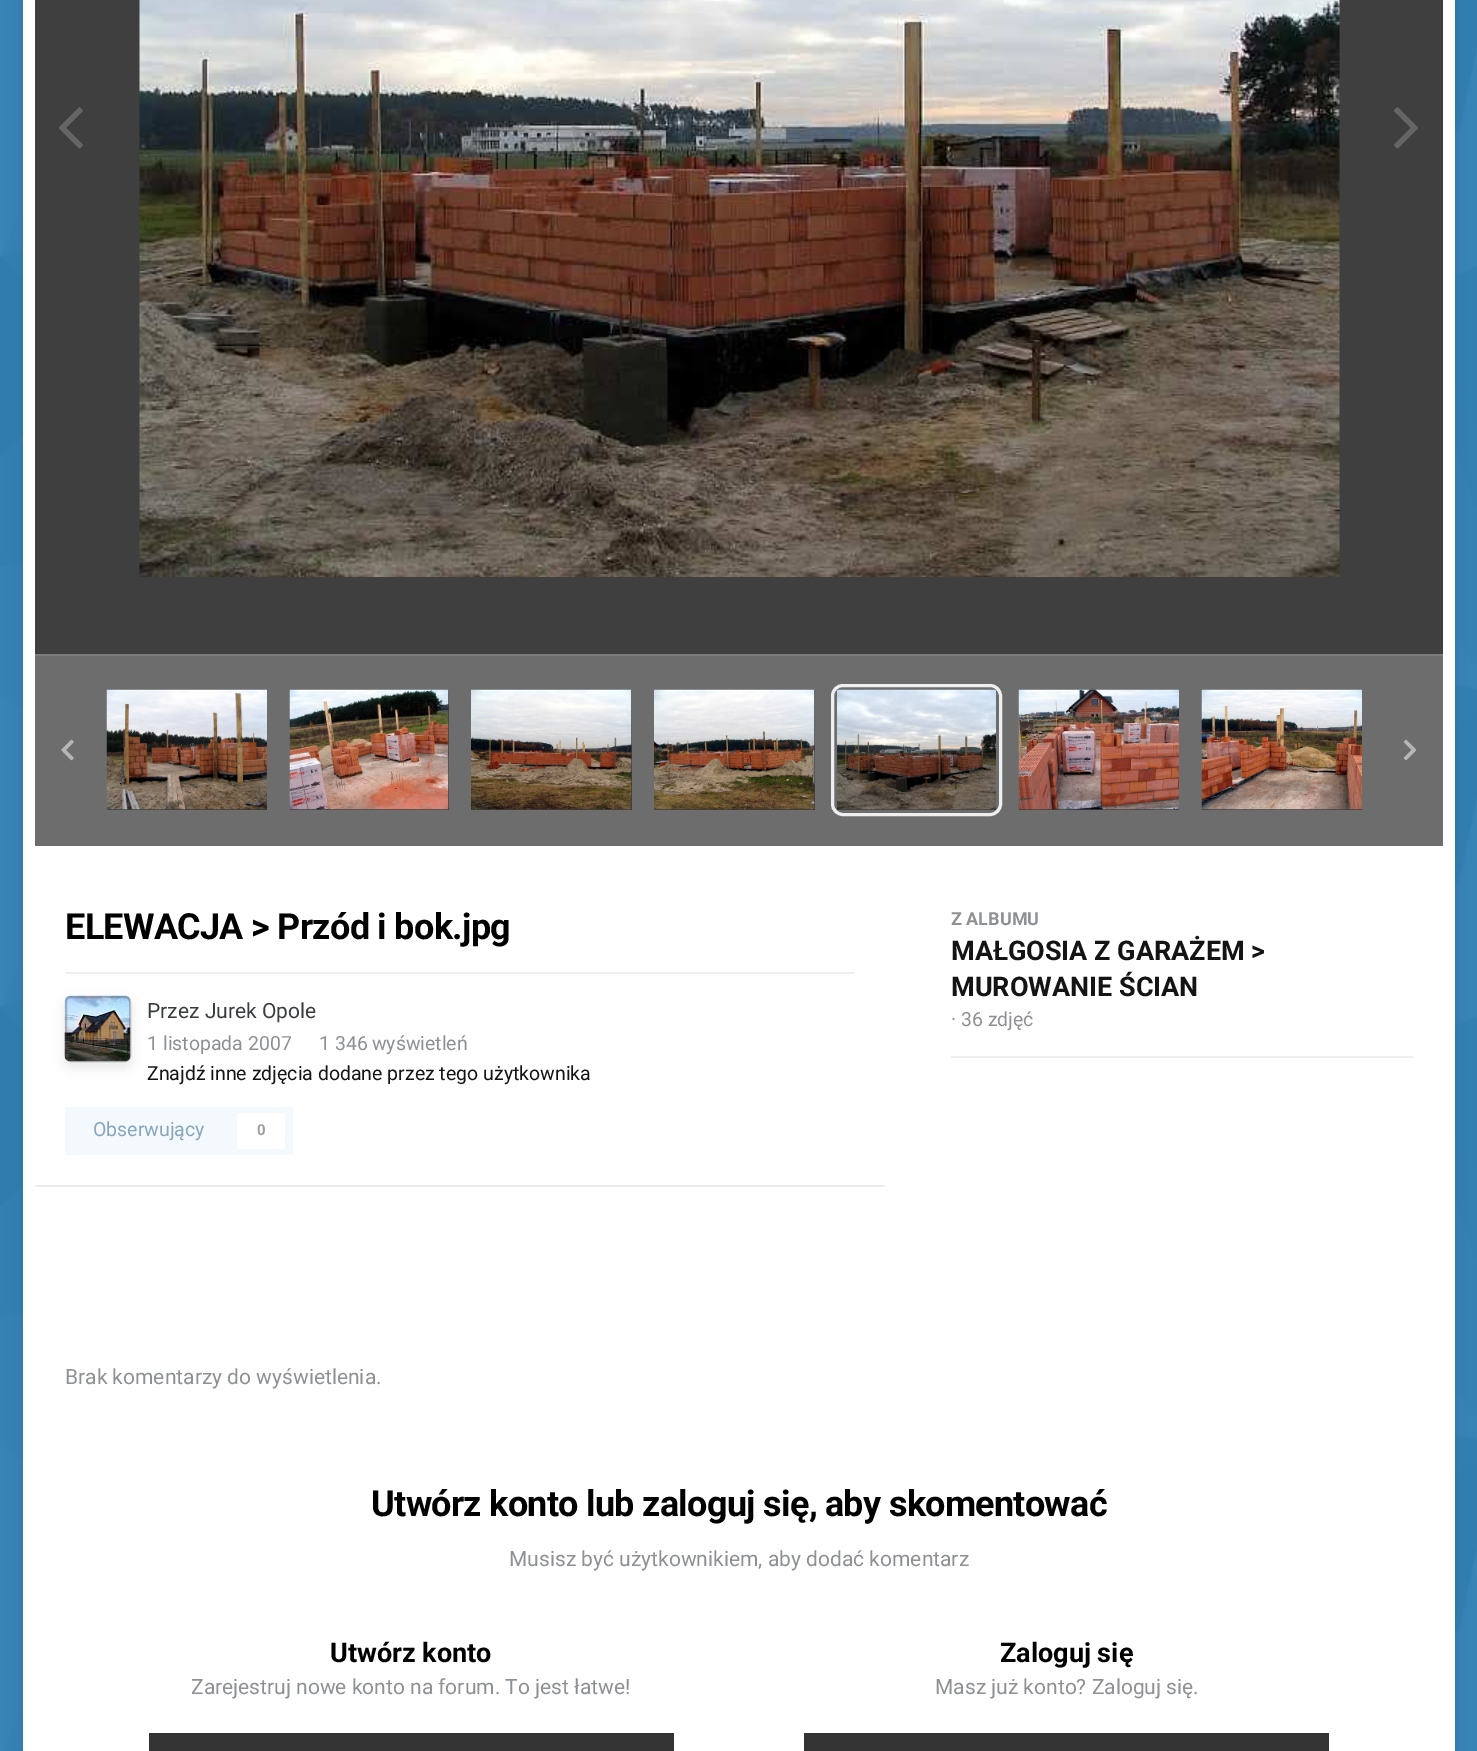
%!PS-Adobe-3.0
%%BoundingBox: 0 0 1477 1751
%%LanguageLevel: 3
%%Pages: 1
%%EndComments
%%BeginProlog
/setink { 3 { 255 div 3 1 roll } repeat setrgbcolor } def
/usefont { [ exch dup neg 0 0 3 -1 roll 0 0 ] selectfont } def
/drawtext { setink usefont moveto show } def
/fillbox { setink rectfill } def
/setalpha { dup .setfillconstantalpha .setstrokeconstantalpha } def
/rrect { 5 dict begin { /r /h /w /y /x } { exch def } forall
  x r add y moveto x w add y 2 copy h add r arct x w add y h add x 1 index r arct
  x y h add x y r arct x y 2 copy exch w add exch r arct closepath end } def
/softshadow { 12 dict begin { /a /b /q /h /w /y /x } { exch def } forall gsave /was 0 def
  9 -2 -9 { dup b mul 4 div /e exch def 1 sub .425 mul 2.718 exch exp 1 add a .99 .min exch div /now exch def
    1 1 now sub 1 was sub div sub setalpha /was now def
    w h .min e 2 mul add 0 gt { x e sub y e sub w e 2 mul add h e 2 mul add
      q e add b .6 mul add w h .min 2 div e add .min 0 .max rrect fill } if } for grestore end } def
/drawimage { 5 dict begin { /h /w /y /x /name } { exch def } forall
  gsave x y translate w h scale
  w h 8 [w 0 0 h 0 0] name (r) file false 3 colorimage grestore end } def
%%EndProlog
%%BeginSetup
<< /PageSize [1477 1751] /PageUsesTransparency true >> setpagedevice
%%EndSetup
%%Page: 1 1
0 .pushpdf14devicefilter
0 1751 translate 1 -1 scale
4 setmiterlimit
0 0 1477 1751 46 129 182 fillbox
(assets/img1.rgb) 0 0 1477 1751 drawimage
0 0 0 setink
23 -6 1432 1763 0 2 0.08 softshadow
23 -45 1432 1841 0 15 0.06 softshadow
23 0 1432 1751 255 255 255 fillbox
35 0 1408 654 63 63 63 fillbox
(assets/img2.rgb) 139 0 1201 577 drawimage
(assets/img3.rgb) 59 107 24 42 drawimage
(assets/img4.rgb) 1394 107 24 42 drawimage
35 656 1408 190 109 109 109 fillbox
35 654 1408 2 124 124 124 fillbox
107 809 160 1 61 61 61 fillbox
(assets/img5.rgb) 106 689 161 121 drawimage
290 690 159 120 61 61 61 fillbox
(assets/img6.rgb) 289 689 160 121 drawimage
471 690 161 120 61 61 61 fillbox
(assets/img7.rgb) 471 689 161 121 drawimage
654 690 161 120 61 61 61 fillbox
(assets/img8.rgb) 654 689 161 121 drawimage
837 809 159 1 61 61 61 fillbox
239 239 239 setink
3 setlinewidth
832.5 685.5 168 129 10.5 rrect stroke
(assets/img9.rgb) 837 689 159 121 drawimage
1019 809 160 1 61 61 61 fillbox
(assets/img10.rgb) 1018 689 161 121 drawimage
1202 809 160 1 61 61 61 fillbox
(assets/img11.rgb) 1201 689 161 121 drawimage
(assets/img12.rgb) 61 739 13 22 drawimage
(assets/img13.rgb) 1403 739 14 22 drawimage
/Roboto-Bold 36 usefont
0 0 0 setink
65 939 moveto -0.7 0 (ELEWACJA > Przód i bok.jpg) ashow
65 972 790 2 239 239 240 fillbox
(assets/img14.rgb) 64 995 67 67 drawimage
gsave
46 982 moveto 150 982 lineto 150 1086 lineto 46 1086 lineto closepath 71 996 moveto 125 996 lineto 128.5 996 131 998.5 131 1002 curveto 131 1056 lineto 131 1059.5 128.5 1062 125 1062 curveto 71 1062 lineto 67.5 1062 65 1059.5 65 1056 curveto 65 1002 lineto 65 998.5 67.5 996 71 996 curveto closepath eoclip newpath
0 0 0 setink
65 1001 66 66 6 6 0.1 softshadow
grestore
0.3 setalpha
58 61 64 setink
2 setlinewidth
66 997 64 64 5 rrect stroke
1 setalpha
(Przez Jurek Opole) 147 1018 /Roboto-Regular 21 58 61 64 drawtext
(1 listopada 2007) 147 1050 /Roboto-Regular 19.5 141 144 148 drawtext
(1) 319 1050 /Roboto-Regular 19.5 141 144 148 drawtext
335 1050 moveto -1 0 32 (346 wyświetleń) widthshow
(Znajdź inne zdjęcia dodane przez tego użytkownika) 147 1080 /Roboto-Regular 19.5 20 20 20 drawtext
65 1107 228 48 244 249 253 fillbox
(Obserwujący) 93 1136 /Roboto-Regular 19.5 135 166 188 drawtext
237 1113 48 36 255 255 255 fillbox
(0) 257 1135 /Roboto-Bold 15 157 158 160 drawtext
35 1185 850 2 235 236 236 fillbox
(Z ALBUMU) 951 925 /Roboto-Bold 18 141 144 148 drawtext
(MAŁGOSIA Z GARAŻEM >) 951 960 /Roboto-Bold 27 20 20 20 drawtext
(MUROWANIE ŚCIAN) 951 996 /Roboto-Bold 27 20 20 20 drawtext
(· 36 zdjęć) 951 1026 /Roboto-Regular 19.5 141 144 148 drawtext
951 1056 462 2 239 239 240 fillbox
(Brak komentarzy do wyświetlenia.) 65 1384 /Roboto-Regular 21 141 144 148 drawtext
/Roboto-Bold 36 usefont
0 0 0 setink
371 1516 moveto -0.7 0 (Utwórz konto lub zaloguj się, aby skomentować) ashow
(Musisz być użytkownikiem, aby dodać komentarz) 509 1566 /Roboto-Regular 21 141 144 148 drawtext
(Utwórz konto) 330 1662 /Roboto-Bold 27 0 0 0 drawtext
(Zarejestruj nowe konto na forum. To jest łatwe!) 191 1694 /Roboto-Regular 21 141 144 148 drawtext
149 1733 525 18 51 51 51 fillbox
(Zaloguj się) 1000 1662 /Roboto-Bold 27 0 0 0 drawtext
(Masz już konto? Zaloguj się.) 935 1694 /Roboto-Regular 21 141 144 148 drawtext
804 1733 525 18 51 51 51 fillbox
.poppdf14devicefilter showpage
%%EOF
